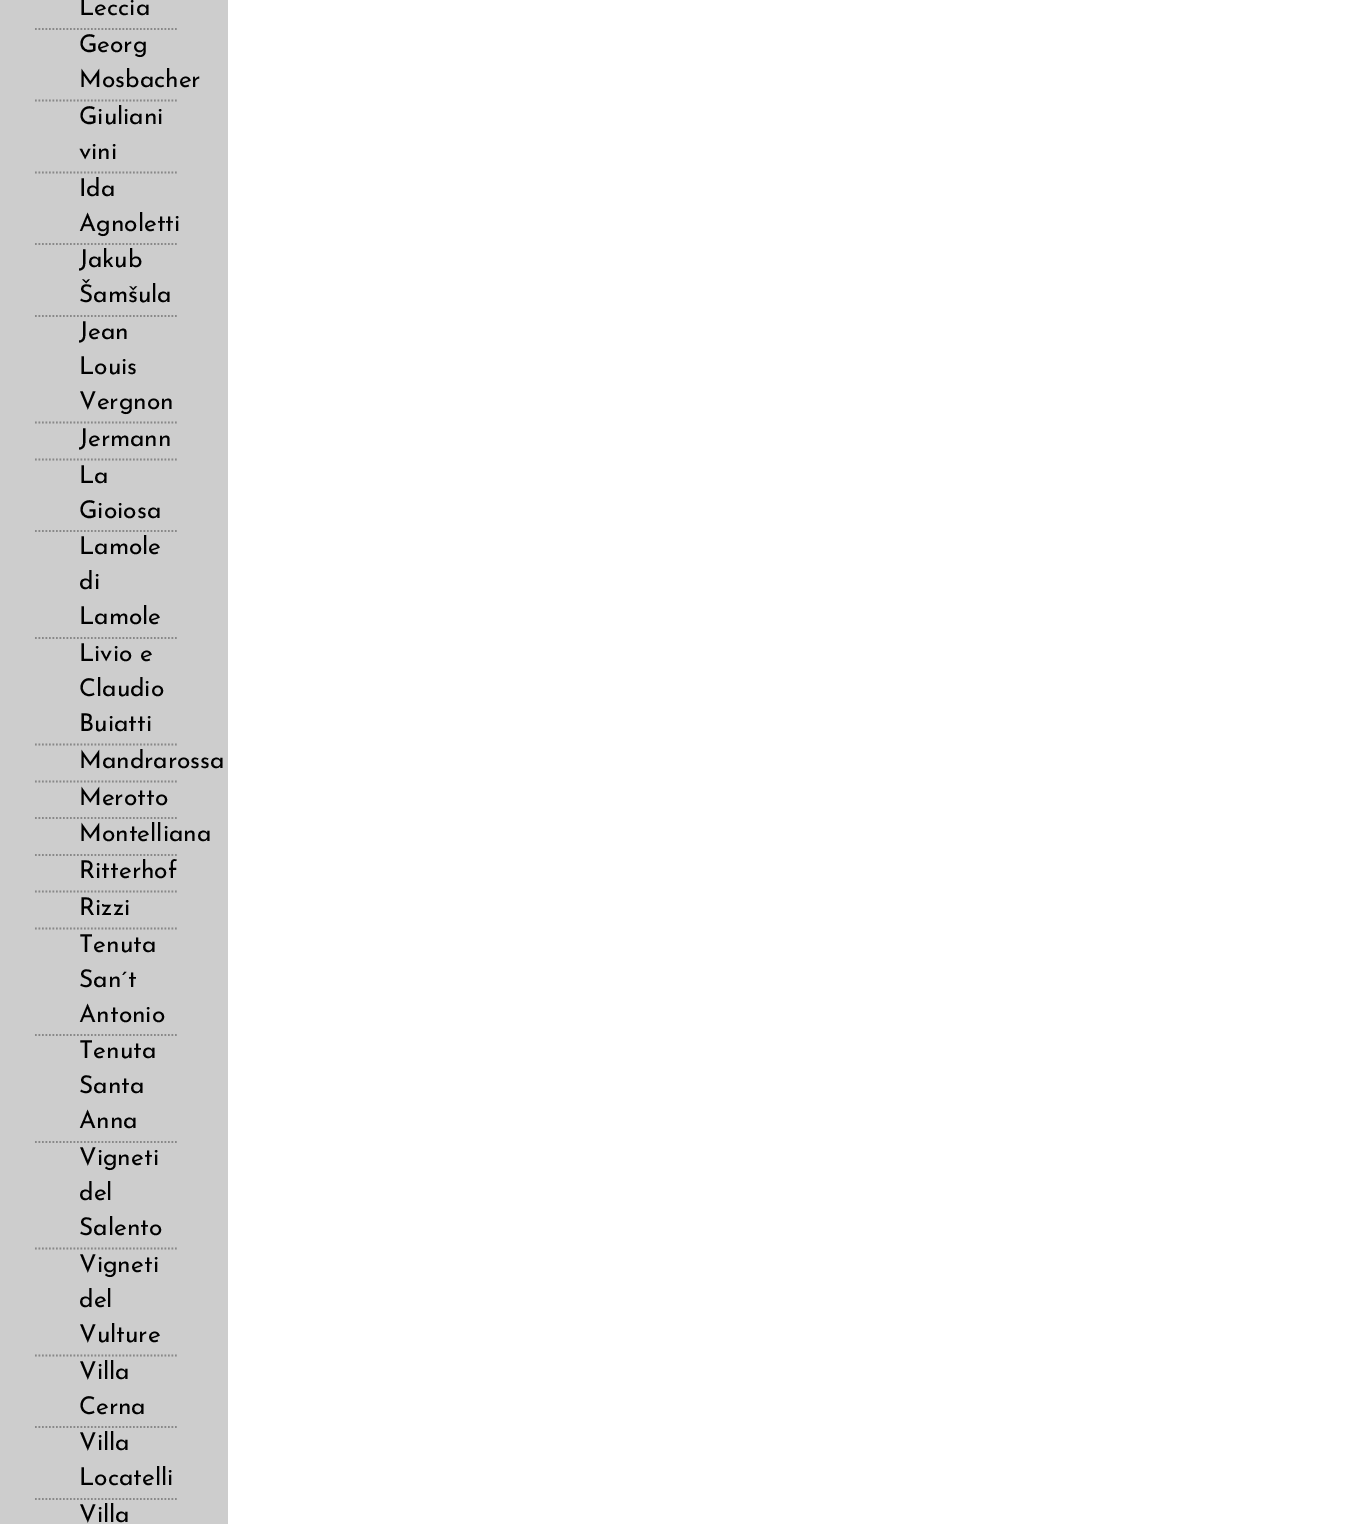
%!PS-Adobe-3.0
%%BoundingBox: 0 0 1367 1524
%%LanguageLevel: 3
%%Pages: 1
%%EndComments
%%BeginProlog
/setink { 3 { 255 div 3 1 roll } repeat setrgbcolor } def
/usefont { [ exch dup neg 0 0 3 -1 roll 0 0 ] selectfont } def
/drawtext { setink usefont moveto show } def
/fillbox { setink rectfill } def
%%EndProlog
%%BeginSetup
<< /PageSize [1367 1524] >> setpagedevice
%%EndSetup
%%Page: 1 1
0 1524 translate 1 -1 scale
4 setmiterlimit
0 0 1367 1524 255 255 255 fillbox
0 0 228 1524 205 205 205 fillbox
136 136 136 setink
1.8 setlinewidth
[1.75 1.75] 0 setdash
35 29 moveto 178.5 29 lineto stroke
(Leccia) 79 15 /JosefinSans-Regular 24.5 0 0 0 drawtext
136 136 136 setink
35 100.5 moveto 178.5 100.5 lineto stroke
(Georg) 79 52 /JosefinSans-Regular 24.5 0 0 0 drawtext
(Mosbacher) 79 87 /JosefinSans-Regular 24.5 0 0 0 drawtext
136 136 136 setink
35 172.5 moveto 178.5 172.5 lineto stroke
(Giuliani) 79 124 /JosefinSans-Regular 24.5 0 0 0 drawtext
(vini) 79 159 /JosefinSans-Regular 24.5 0 0 0 drawtext
136 136 136 setink
35 244 moveto 178.5 244 lineto stroke
(Ida) 79 196 /JosefinSans-Regular 24.5 0 0 0 drawtext
(Agnoletti) 79 231 /JosefinSans-Regular 24.5 0 0 0 drawtext
136 136 136 setink
35 316 moveto 178.5 316 lineto stroke
(Jakub) 79 267 /JosefinSans-Regular 24.5 0 0 0 drawtext
(Šamšula) 79 302 /JosefinSans-Regular 24.5 0 0 0 drawtext
136 136 136 setink
35 422.5 moveto 178.5 422.5 lineto stroke
(Jean) 79 339 /JosefinSans-Regular 24.5 0 0 0 drawtext
(Louis) 79 374 /JosefinSans-Regular 24.5 0 0 0 drawtext
(Vergnon) 79 409 /JosefinSans-Regular 24.5 0 0 0 drawtext
136 136 136 setink
35 459.5 moveto 178.5 459.5 lineto stroke
(Jermann) 79 446 /JosefinSans-Regular 24.5 0 0 0 drawtext
136 136 136 setink
35 531 moveto 178.5 531 lineto stroke
(La) 79 483 /JosefinSans-Regular 24.5 0 0 0 drawtext
(Gioiosa) 79 518 /JosefinSans-Regular 24.5 0 0 0 drawtext
136 136 136 setink
35 638 moveto 178.5 638 lineto stroke
(Lamole) 79 554 /JosefinSans-Regular 24.5 0 0 0 drawtext
(di) 79 589 /JosefinSans-Regular 24.5 0 0 0 drawtext
(Lamole) 79 624 /JosefinSans-Regular 24.5 0 0 0 drawtext
136 136 136 setink
35 744.5 moveto 178.5 744.5 lineto stroke
(Livio e) 79 661 /JosefinSans-Regular 24.5 0 0 0 drawtext
(Claudio) 79 696 /JosefinSans-Regular 24.5 0 0 0 drawtext
(Buiatti) 79 731 /JosefinSans-Regular 24.5 0 0 0 drawtext
136 136 136 setink
35 781.5 moveto 178.5 781.5 lineto stroke
(Mandrarossa) 79 768 /JosefinSans-Regular 24.5 0 0 0 drawtext
136 136 136 setink
35 818 moveto 178.5 818 lineto stroke
(Merotto) 79 805 /JosefinSans-Regular 24.5 0 0 0 drawtext
136 136 136 setink
35 855 moveto 178.5 855 lineto stroke
(Montelliana) 79 841 /JosefinSans-Regular 24.5 0 0 0 drawtext
136 136 136 setink
35 891.5 moveto 178.5 891.5 lineto stroke
(Ritterhof) 79 878 /JosefinSans-Regular 24.5 0 0 0 drawtext
136 136 136 setink
35 928.5 moveto 178.5 928.5 lineto stroke
(Rizzi) 79 915 /JosefinSans-Regular 24.5 0 0 0 drawtext
136 136 136 setink
35 1035 moveto 178.5 1035 lineto stroke
(Tenuta) 79 952 /JosefinSans-Regular 24.5 0 0 0 drawtext
(San´t) 79 987 /JosefinSans-Regular 24.5 0 0 0 drawtext
(Antonio) 79 1022 /JosefinSans-Regular 24.5 0 0 0 drawtext
136 136 136 setink
35 1142 moveto 178.5 1142 lineto stroke
(Tenuta) 79 1058 /JosefinSans-Regular 24.5 0 0 0 drawtext
(Santa) 79 1093 /JosefinSans-Regular 24.5 0 0 0 drawtext
(Anna) 79 1128 /JosefinSans-Regular 24.5 0 0 0 drawtext
136 136 136 setink
35 1248.5 moveto 178.5 1248.5 lineto stroke
(Vigneti) 79 1165 /JosefinSans-Regular 24.5 0 0 0 drawtext
(del) 79 1200 /JosefinSans-Regular 24.5 0 0 0 drawtext
(Salento) 79 1235 /JosefinSans-Regular 24.5 0 0 0 drawtext
136 136 136 setink
35 1355.5 moveto 178.5 1355.5 lineto stroke
(Vigneti) 79 1272 /JosefinSans-Regular 24.5 0 0 0 drawtext
(del) 79 1307 /JosefinSans-Regular 24.5 0 0 0 drawtext
(Vulture) 79 1342 /JosefinSans-Regular 24.5 0 0 0 drawtext
136 136 136 setink
35 1427 moveto 178.5 1427 lineto stroke
(Villa) 79 1379 /JosefinSans-Regular 24.5 0 0 0 drawtext
(Cerna) 79 1414 /JosefinSans-Regular 24.5 0 0 0 drawtext
136 136 136 setink
35 1499 moveto 178.5 1499 lineto stroke
(Villa) 79 1450 /JosefinSans-Regular 24.5 0 0 0 drawtext
(Locatelli) 79 1485 /JosefinSans-Regular 24.5 0 0 0 drawtext
(Villa) 79 1522 /JosefinSans-Regular 24.5 0 0 0 drawtext
showpage
%%EOF
